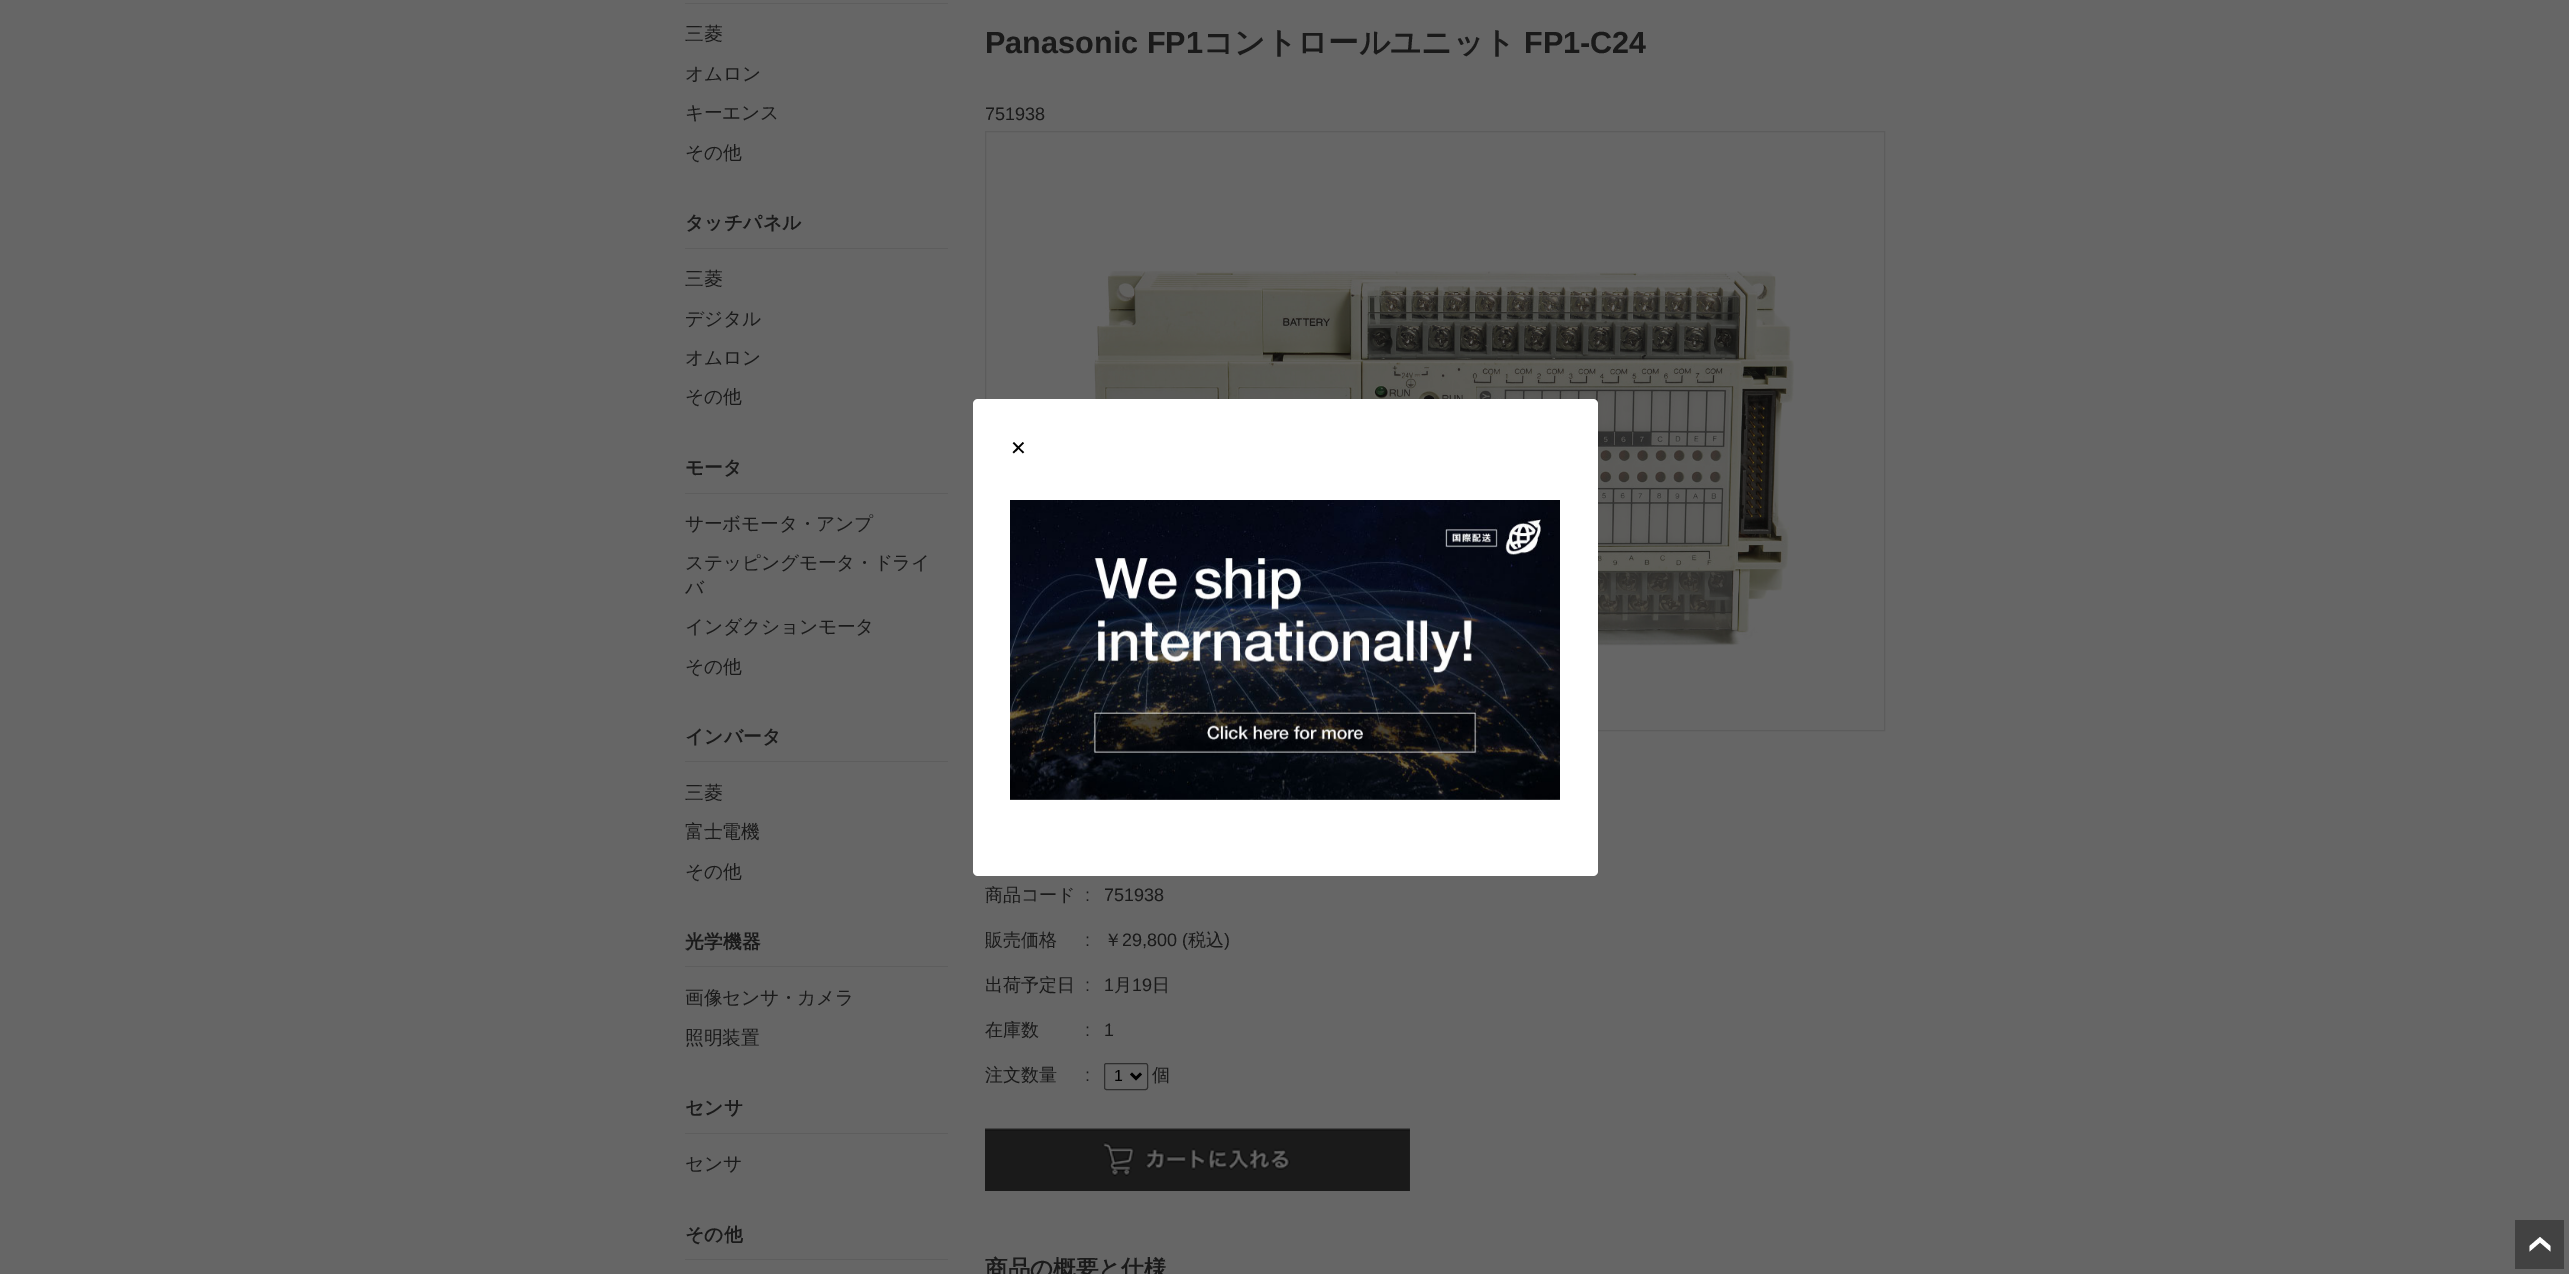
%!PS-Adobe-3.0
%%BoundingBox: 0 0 2569 1274
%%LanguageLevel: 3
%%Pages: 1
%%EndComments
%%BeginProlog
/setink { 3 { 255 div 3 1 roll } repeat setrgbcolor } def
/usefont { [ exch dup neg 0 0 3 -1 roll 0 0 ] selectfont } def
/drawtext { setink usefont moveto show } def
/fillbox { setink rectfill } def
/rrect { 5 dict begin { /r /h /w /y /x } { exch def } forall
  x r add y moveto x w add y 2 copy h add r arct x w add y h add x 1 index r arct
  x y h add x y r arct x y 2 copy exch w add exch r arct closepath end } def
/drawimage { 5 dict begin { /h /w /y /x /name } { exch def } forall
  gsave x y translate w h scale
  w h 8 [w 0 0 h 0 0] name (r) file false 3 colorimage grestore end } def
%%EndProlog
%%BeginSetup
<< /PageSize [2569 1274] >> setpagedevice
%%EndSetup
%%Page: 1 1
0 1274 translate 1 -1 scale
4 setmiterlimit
0 0 2569 1274 102 102 102 fillbox
685 3 263 1 93 93 93 fillbox
/WenQuanYiZenHei-Medium 18.75 usefont
26 26 26 setink
685 40 moveto -0.25 0 (三菱) ashow
685 80 moveto -0.25 0 (オムロン) ashow
685 119 moveto -0.25 0 (キーエンス) ashow
685 159 moveto -0.25 0 (その他) ashow
685 248 263 1 93 93 93 fillbox
/WenQuanYiZenHei-Bold 18.75 usefont
26 26 26 setink
685 229 moveto 0.25 0 (タッチパネル) ashow
/WenQuanYiZenHei-Medium 18.75 usefont
685 285 moveto -0.25 0 (三菱) ashow
685 325 moveto -0.25 0 (デジタル) ashow
685 364 moveto -0.25 0 (オムロン) ashow
685 403 moveto -0.25 0 (その他) ashow
685 493 263 1 93 93 93 fillbox
/WenQuanYiZenHei-Bold 18.75 usefont
26 26 26 setink
685 474 moveto 0.25 0 (モータ) ashow
/WenQuanYiZenHei-Medium 18.75 usefont
685 530 moveto -0.25 0 (サーボモータ・アンプ) ashow
685 569 moveto -0.25 0 (ステッピングモータ・ドライ) ashow
685 594 moveto -0.25 0 (バ) ashow
685 633 moveto -0.25 0 (インダクションモータ) ashow
685 673 moveto -0.25 0 (その他) ashow
685 761 263 1 93 93 93 fillbox
/WenQuanYiZenHei-Bold 18.75 usefont
26 26 26 setink
685 743 moveto 0.25 0 (インバータ) ashow
/WenQuanYiZenHei-Medium 18.75 usefont
685 799 moveto -0.25 0 (三菱) ashow
685 838 moveto -0.25 0 (富士電機) ashow
685 878 moveto -0.25 0 (その他) ashow
685 966 263 1 93 93 93 fillbox
/WenQuanYiZenHei-Bold 18.75 usefont
26 26 26 setink
685 948 moveto 0.25 0 (光学機器) ashow
/WenQuanYiZenHei-Medium 18.75 usefont
685 1004 moveto -0.25 0 (画像センサ・カメラ) ashow
685 1044 moveto -0.25 0 (照明装置) ashow
685 1133 263 1 93 93 93 fillbox
/WenQuanYiZenHei-Bold 18.75 usefont
26 26 26 setink
685 1114 moveto 0.25 0 (センサ) ashow
/WenQuanYiZenHei-Medium 18.75 usefont
685 1170 moveto -0.25 0 (センサ) ashow
685 1259 263 1 93 93 93 fillbox
/WenQuanYiZenHei-Bold 18.75 usefont
26 26 26 setink
685 1241 moveto 0.25 0 (その他) ashow
(Panasonic FP1) 985 53 /LiberationSans-Bold 30.6 26 26 26 drawtext
(コントロールユニット) 1203 53 /WenQuanYiZenHei-Bold 30.6 26 26 26 drawtext
(FP1-C24) 1524 53 /LiberationSans-Bold 30.6 26 26 26 drawtext
(751938) 985 120 /LiberationSans-Regular 18 26 26 26 drawtext
(assets/img1.rgb) 1055 271 739 376 drawimage
92 92 92 setink
985.5 131.5 899 599 rectstroke
(商品コード) 985 901 /WenQuanYiZenHei-Medium 18 26 26 26 drawtext
(:) 1085 901 /LiberationSans-Regular 18 26 26 26 drawtext
(751938) 1104 901 /LiberationSans-Regular 18 26 26 26 drawtext
(販売価格) 985 946 /WenQuanYiZenHei-Medium 18 26 26 26 drawtext
(:) 1085 946 /LiberationSans-Regular 18 26 26 26 drawtext
(￥) 1104 946 /WenQuanYiZenHei-Medium 18 26 26 26 drawtext
(29,800 \() 1122 946 /LiberationSans-Regular 18 26 26 26 drawtext
(税込) 1188 946 /WenQuanYiZenHei-Medium 18 26 26 26 drawtext
(\)) 1224 946 /LiberationSans-Regular 18 26 26 26 drawtext
(出荷予定日) 985 991 /WenQuanYiZenHei-Medium 18 26 26 26 drawtext
(:) 1085 991 /LiberationSans-Regular 18 26 26 26 drawtext
(1) 1104 991 /LiberationSans-Regular 18 26 26 26 drawtext
(月) 1114 991 /WenQuanYiZenHei-Medium 18 26 26 26 drawtext
(19) 1132 991 /LiberationSans-Regular 18 26 26 26 drawtext
(日) 1152 991 /WenQuanYiZenHei-Medium 18 26 26 26 drawtext
(在庫数) 985 1036 /WenQuanYiZenHei-Medium 18 26 26 26 drawtext
(:) 1085 1036 /LiberationSans-Regular 18 26 26 26 drawtext
(1) 1104 1036 /LiberationSans-Regular 18 26 26 26 drawtext
(注文数量) 985 1081 /WenQuanYiZenHei-Medium 18 26 26 26 drawtext
(:) 1085 1081 /LiberationSans-Regular 18 26 26 26 drawtext
47 47 47 setink
1104.5 1063.5 43 26 2 rrect stroke
0 0 0 setink
2.5 setlinewidth
1131 1073.5 moveto 1136 1078.5 lineto 1141 1073.5 lineto stroke
(1) 1114 1081 /LiberationSans-Regular 16 0 0 0 drawtext
(個) 1152 1081 /WenQuanYiZenHei-Medium 18 26 26 26 drawtext
(assets/img2.rgb) 985 1128 425 63 drawimage
(商品の概要と仕様) 985 1276 /WenQuanYiZenHei-Bold 22.5 26 26 26 drawtext
255 255 255 setink
973 399 625 477 5 rrect fill
(✕) 1010 455 /DejaVuSans-Regular 20 0 0 0 drawtext
(assets/img3.rgb) 1010 500 550 300 drawimage
2515 1220 49 49 66 66 66 fillbox
255 255 255 setink
2540 1237 moveto 2529.5 1246 lineto 2529.5 1251.5 lineto 2540 1242.5 lineto 2550.5 1251.5 lineto 2550.5 1246 lineto closepath fill
showpage
%%EOF
